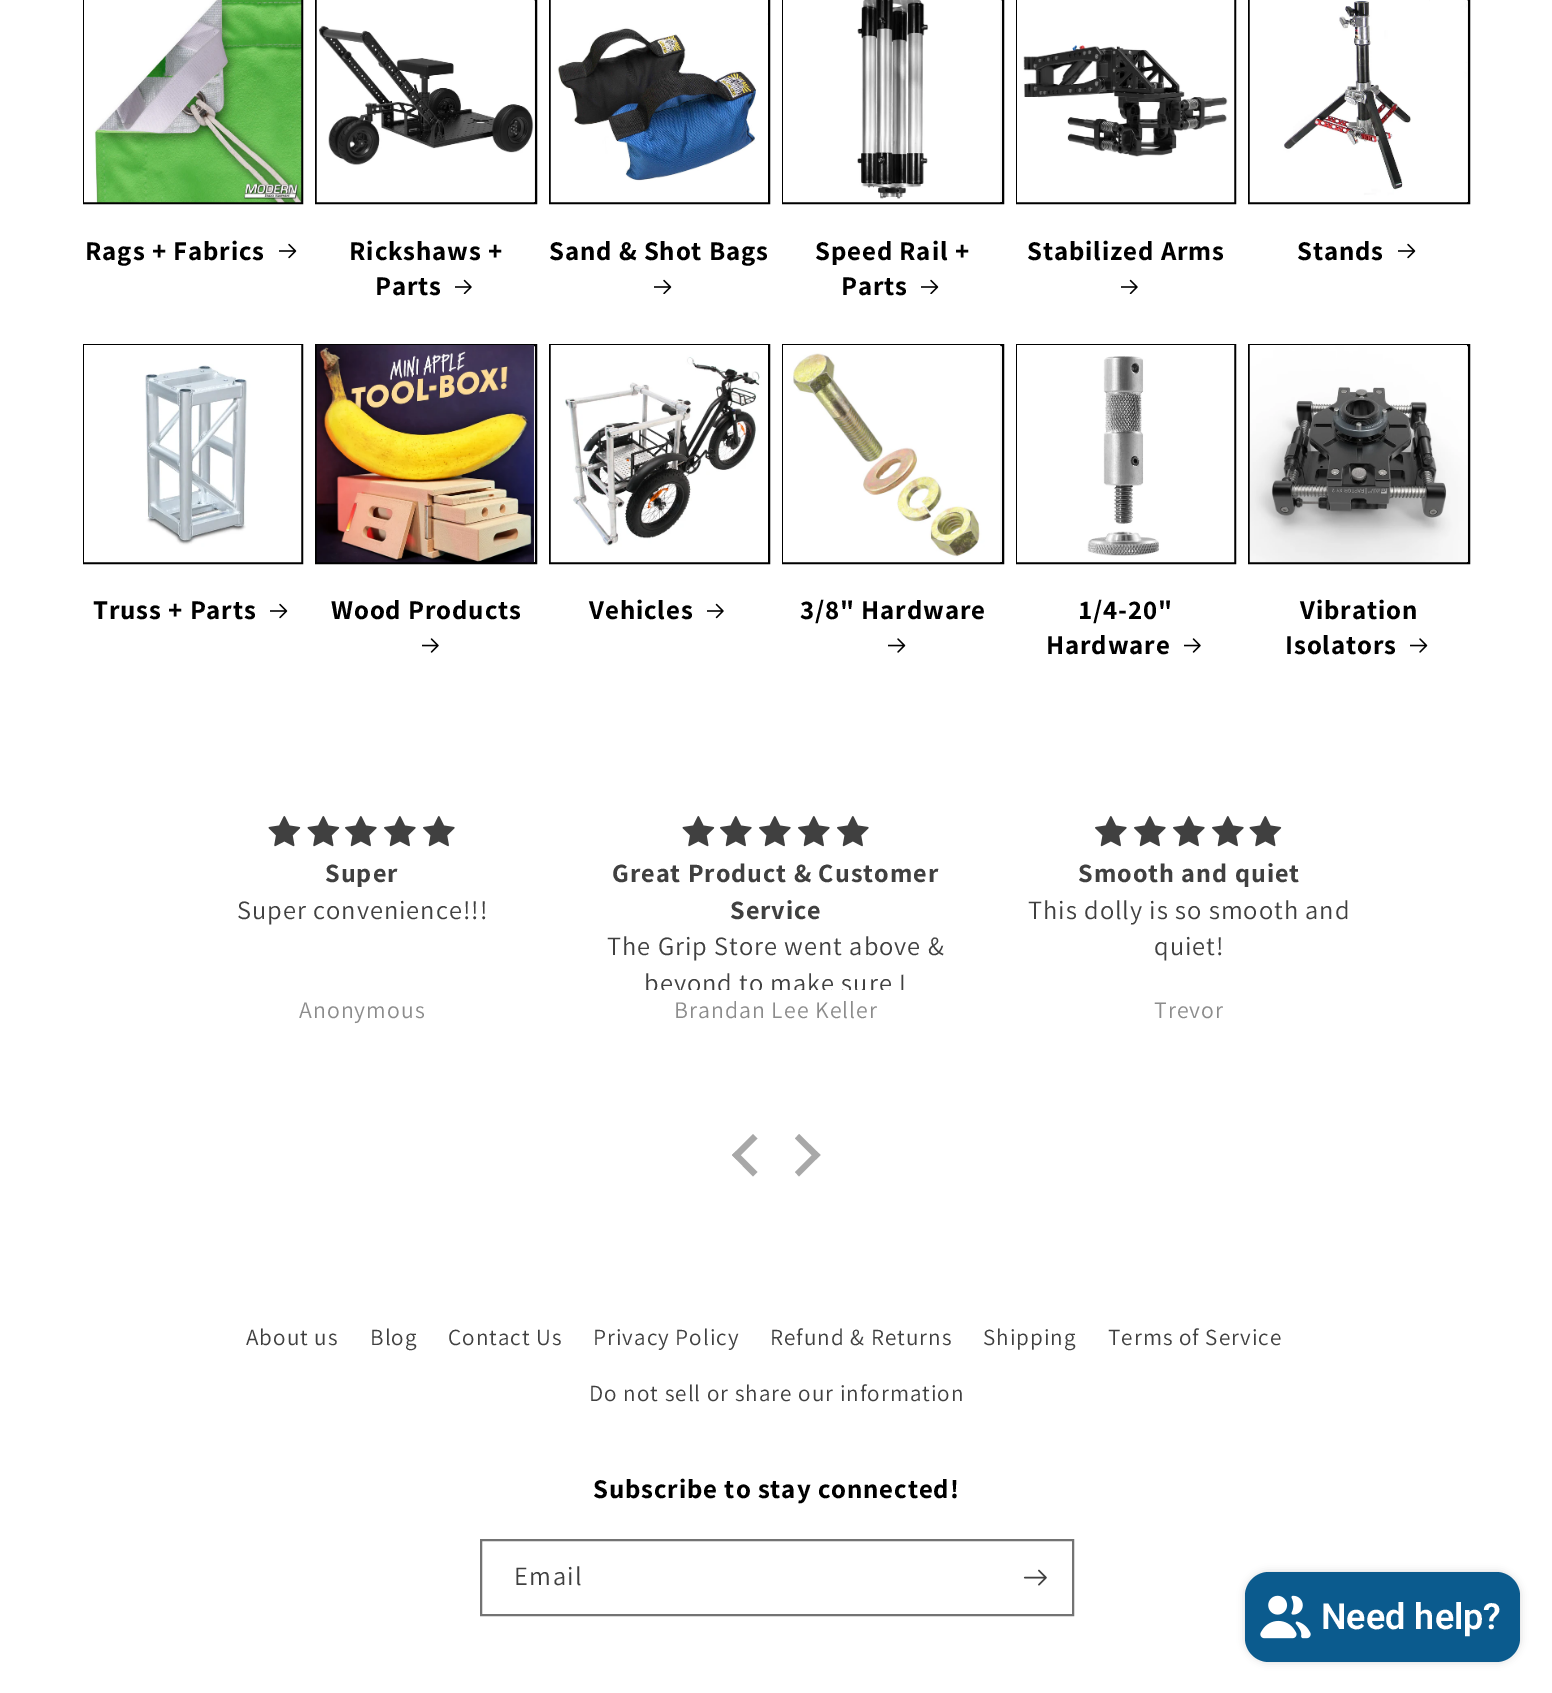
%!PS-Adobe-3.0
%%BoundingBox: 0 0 1552 1693
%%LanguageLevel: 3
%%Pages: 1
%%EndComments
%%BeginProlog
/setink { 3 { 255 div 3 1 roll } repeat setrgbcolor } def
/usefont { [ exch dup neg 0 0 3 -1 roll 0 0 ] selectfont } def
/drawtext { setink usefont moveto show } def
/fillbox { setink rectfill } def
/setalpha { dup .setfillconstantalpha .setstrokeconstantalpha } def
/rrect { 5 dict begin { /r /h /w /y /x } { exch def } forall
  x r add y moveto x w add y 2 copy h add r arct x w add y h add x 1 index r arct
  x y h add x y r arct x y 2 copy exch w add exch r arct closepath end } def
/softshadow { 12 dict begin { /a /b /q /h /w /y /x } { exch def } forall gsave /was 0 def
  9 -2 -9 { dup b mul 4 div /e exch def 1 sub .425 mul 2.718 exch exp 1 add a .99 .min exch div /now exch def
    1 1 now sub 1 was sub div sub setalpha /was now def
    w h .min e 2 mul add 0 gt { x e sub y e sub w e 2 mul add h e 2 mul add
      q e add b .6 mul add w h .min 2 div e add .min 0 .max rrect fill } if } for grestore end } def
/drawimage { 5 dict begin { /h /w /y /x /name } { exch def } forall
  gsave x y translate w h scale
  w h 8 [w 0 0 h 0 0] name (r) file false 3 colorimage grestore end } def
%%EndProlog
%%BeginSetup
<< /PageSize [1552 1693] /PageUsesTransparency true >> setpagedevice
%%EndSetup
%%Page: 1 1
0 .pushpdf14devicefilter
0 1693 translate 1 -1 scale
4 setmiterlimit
0 0 1552 1693 255 255 255 fillbox
0 0 0 setink
2 setlinewidth
84 -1 218 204 rectstroke
(assets/img1.rgb) 84 0 218 203 drawimage
/Assistant-Bold 27 usefont
85 260 moveto 0.9 0 (Rags + Fabrics) ashow
(assets/img2.rgb) 279 243 18 16 drawimage
534 0 1 202 243 243 243 fillbox
0 0 0 setink
316 -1 220 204 rectstroke
(assets/img3.rgb) 316 0 218 203 drawimage
349 260 moveto 0.9 0 (Rickshaws +) ashow
375 295 moveto 0.9 0 (Parts) ashow
(assets/img4.rgb) 455 279 17 15 drawimage
550 -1 219 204 rectstroke
(assets/img5.rgb) 550 0 218 203 drawimage
549 260 moveto 0.9 0 (Sand & Shot Bags) ashow
(assets/img6.rgb) 654 279 18 15 drawimage
1000 0 2 202 243 243 243 fillbox
0 0 0 setink
783 -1 220 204 rectstroke
(assets/img7.rgb) 783 0 218 203 drawimage
815 260 moveto 0.9 0 (Speed Rail +) ashow
841 295 moveto 0.9 0 (Parts) ashow
(assets/img6.rgb) 921 279 18 15 drawimage
1017 -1 218 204 rectstroke
(assets/img8.rgb) 1017 0 218 203 drawimage
1027 260 moveto 0.9 0 (Stabilized Arms) ashow
(assets/img4.rgb) 1121 279 17 15 drawimage
1467 0 1 202 243 243 243 fillbox
0 0 0 setink
1249 -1 220 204 rectstroke
(assets/img9.rgb) 1249 0 218 203 drawimage
1297 260 moveto 0.9 0 (Stands) ashow
(assets/img2.rgb) 1398 243 18 16 drawimage
84 345 218 218 rectstroke
(assets/img10.rgb) 84 345 218 218 drawimage
93 619 moveto 0.9 0 (Truss + Parts) ashow
(assets/img2.rgb) 270 603 18 16 drawimage
534 346 1 216 243 243 243 fillbox
0 0 0 setink
316 345 220 218 rectstroke
(assets/img11.rgb) 316 345 218 218 drawimage
331 619 moveto 0.9 0 (Wood Products) ashow
(assets/img12.rgb) 422 638 17 15 drawimage
550 345 219 218 rectstroke
(assets/img13.rgb) 550 345 218 218 drawimage
589 619 moveto 0.9 0 (Vehicles) ashow
(assets/img14.rgb) 707 603 17 16 drawimage
1000 346 2 216 243 243 243 fillbox
0 0 0 setink
783 345 220 218 rectstroke
(assets/img15.rgb) 783 345 218 218 drawimage
800 619 moveto 0.9 0 (3/8" Hardware) ashow
(assets/img16.rgb) 888 638 18 15 drawimage
1017 345 218 218 rectstroke
(assets/img17.rgb) 1017 345 218 218 drawimage
1079 619 moveto 0.9 0 (1/4-20") ashow
1046 654 moveto 0.9 0 (Hardware) ashow
(assets/img12.rgb) 1184 638 17 15 drawimage
1467 346 1 216 243 243 243 fillbox
0 0 0 setink
1249 345 220 218 rectstroke
(assets/img18.rgb) 1249 345 218 218 drawimage
1300 619 moveto 0.9 0 (Vibration) ashow
1285 654 moveto 0.9 0 (Isolators) ashow
(assets/img16.rgb) 1410 638 18 15 drawimage
(assets/img19.rgb) 268 816 33 31 drawimage
(assets/img19.rgb) 307 816 33 31 drawimage
(assets/img20.rgb) 345 816 32 31 drawimage
(assets/img20.rgb) 384 816 32 31 drawimage
(assets/img20.rgb) 423 816 32 31 drawimage
/Assistant-Bold 26.4 usefont
64 64 64 setink
325 882 moveto 1 0 (Super) ashow
/Assistant-Regular 26.4 usefont
237 919 moveto 1 0 (Super convenience!!!) ashow
/Assistant-Regular 23.75 usefont
140 140 140 setink
299 1018 moveto 1 0 (Anonymous) ashow
(assets/img19.rgb) 682 816 33 31 drawimage
(assets/img20.rgb) 720 816 32 31 drawimage
(assets/img20.rgb) 759 816 32 31 drawimage
(assets/img20.rgb) 798 816 32 31 drawimage
(assets/img20.rgb) 837 816 32 31 drawimage
/Assistant-Bold 26.4 usefont
64 64 64 setink
612 882 moveto 1 0 (Great Product & Customer) ashow
730 919 moveto 1 0 (Service) ashow
/Assistant-Regular 26.4 usefont
607 955 moveto 1 0 (The Grip Store went above &) ashow
gsave
605 810 342 180 rectclip
644 992 moveto 1 0 (beyond to make sure I) ashow
grestore
/Assistant-Regular 23.75 usefont
140 140 140 setink
674 1018 moveto 1 0 (Brandan Lee Keller) ashow
(assets/img20.rgb) 1095 816 32 31 drawimage
(assets/img20.rgb) 1134 816 32 31 drawimage
(assets/img20.rgb) 1173 816 32 31 drawimage
(assets/img20.rgb) 1212 816 32 31 drawimage
(assets/img19.rgb) 1249 816 33 31 drawimage
/Assistant-Bold 26.4 usefont
64 64 64 setink
1078 882 moveto 1 0 (Smooth and quiet) ashow
/Assistant-Regular 26.4 usefont
1028 919 moveto 1 0 (This dolly is so smooth and) ashow
1154 955 moveto 1 0 (quiet!) ashow
/Assistant-Regular 23.75 usefont
140 140 140 setink
1154 1018 moveto 1 0 (Trevor) ashow
168 168 168 setink
732 1155 moveto 753 1134 lineto 757.5 1138.5 lineto 736.5 1159.5 lineto closepath fill
732 1155 moveto 736.5 1151 lineto 757.5 1172 lineto 753 1176.5 lineto closepath fill
795 1138.5 moveto 799 1134 lineto 820.5 1155 lineto 816 1159.5 lineto closepath fill
795 1172 moveto 816 1151 lineto 820.5 1155 lineto 799 1176.5 lineto closepath fill
/Assistant-Regular 23.1 usefont
64 64 64 setink
246 1345 moveto 1 0 (About us) ashow
370 1345 moveto 1 0 (Blog) ashow
448 1345 moveto 1 0 (Contact Us) ashow
593 1345 moveto 1 0 (Privacy Policy) ashow
770 1345 moveto 1 0 (Refund & Returns) ashow
983 1345 moveto 1 0 (Shipping) ashow
1108 1345 moveto 1 0 (Terms of Service) ashow
589 1401 moveto 1 0 (Do not sell or share our information) ashow
/Assistant-Bold 27 usefont
0 0 0 setink
593 1498 moveto 0.9 0 (Subscribe to stay connected!) ashow
115 115 115 setink
481 1540 592 75 rectstroke
/Assistant-Regular 26.4 usefont
64 64 64 setink
514 1585 moveto 1.5 0 (Email) ashow
(assets/img21.rgb) 1023 1569 24 17 drawimage
0 0 0 setink
1245 1572 275 90 24 4 0.15 softshadow
11 91 142 setink
1245 1572 275 90 24 rrect fill
(assets/img22.rgb) 1260 1595 51 44 drawimage
(Need help?) 1321 1629 /Roboto-SemiBold 36 255 255 255 drawtext
.poppdf14devicefilter showpage
%%EOF
